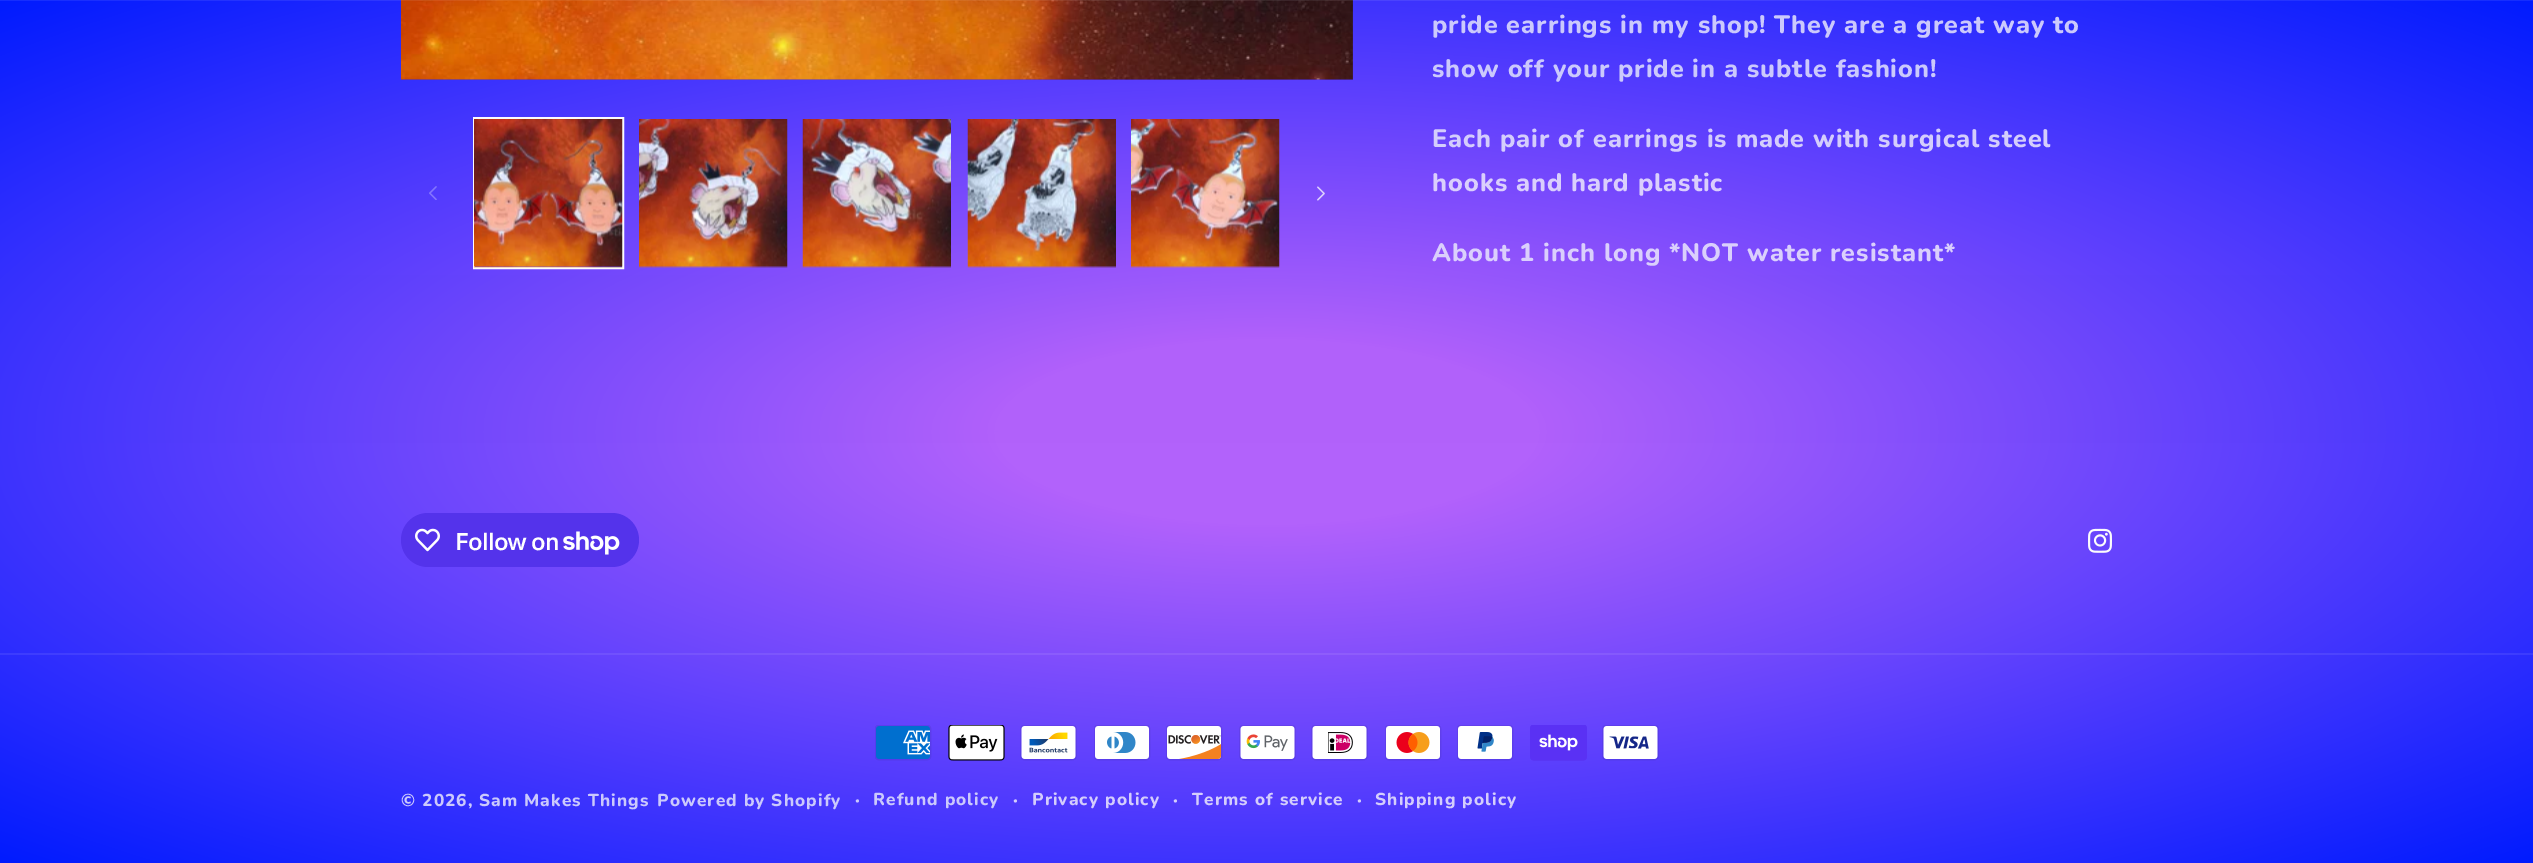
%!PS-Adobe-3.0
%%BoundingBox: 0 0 2533 863
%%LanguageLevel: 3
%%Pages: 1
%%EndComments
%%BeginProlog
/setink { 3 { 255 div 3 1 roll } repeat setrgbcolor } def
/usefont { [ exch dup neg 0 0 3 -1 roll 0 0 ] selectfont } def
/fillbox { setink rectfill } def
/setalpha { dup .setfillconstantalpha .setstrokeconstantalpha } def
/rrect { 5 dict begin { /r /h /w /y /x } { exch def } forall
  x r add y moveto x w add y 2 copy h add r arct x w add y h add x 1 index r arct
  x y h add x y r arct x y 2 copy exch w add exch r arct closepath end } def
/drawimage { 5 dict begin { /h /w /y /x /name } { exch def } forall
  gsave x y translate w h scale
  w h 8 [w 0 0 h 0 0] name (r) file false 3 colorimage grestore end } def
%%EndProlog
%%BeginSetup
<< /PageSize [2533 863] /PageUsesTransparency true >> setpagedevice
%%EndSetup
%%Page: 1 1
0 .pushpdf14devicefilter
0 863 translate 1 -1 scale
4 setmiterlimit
0 0 2533 863 255 255 255 fillbox
gsave 0 0 moveto 2533 0 lineto 2533 275 lineto 0 275 lineto closepath clip newpath 1267 432 translate 1791 611 scale
<< /ShadingType 3 /ColorSpace /DeviceRGB /Coords [0 0 0 0 0 1] /Extend [true true] /Function << /FunctionType 3 /Domain [0 1] /Functions [<< /FunctionType 2 /Domain [0 1] /C0 [0.698 0.38 0.984] /C1 [0.698 0.38 0.984] /N 1 >> << /FunctionType 2 /Domain [0 1] /C0 [0.698 0.38 0.984] /C1 [0 0.106 1] /N 1 >>] /Bounds [0.15] /Encode [0 1 0 1] >> >> shfill grestore
gsave 401 0 moveto 1353 0 lineto 1353 80 lineto 401 80 lineto closepath clip newpath 1267 432 translate 1791 611 scale
<< /ShadingType 3 /ColorSpace /DeviceRGB /Coords [0 0 0 0 0 1] /Extend [true true] /Function << /FunctionType 3 /Domain [0 1] /Functions [<< /FunctionType 2 /Domain [0 1] /C0 [0.565 0.251 0.855] /C1 [0.565 0.251 0.855] /N 1 >> << /FunctionType 2 /Domain [0 1] /C0 [0.565 0.251 0.855] /C1 [0 0.106 1] /N 1 >>] /Bounds [0.15] /Encode [0 1 0 1] >> >> shfill grestore
(assets/img1.rgb) 401 0 952 80 drawimage
0.08 setalpha
0 0 2533 1 252 252 252 fillbox
1 setalpha
(assets/img2.rgb) 429 186 8 14 drawimage
2 setlinewidth
474 118 149 150 rectstroke
(assets/img3.rgb) 474 119 149 149 drawimage
(assets/img4.rgb) 639 119 149 149 drawimage
(assets/img5.rgb) 802 119 149 149 drawimage
(assets/img6.rgb) 967 119 149 149 drawimage
(assets/img7.rgb) 1131 119 149 149 drawimage
(assets/img8.rgb) 1317 186 8 15 drawimage
/Nunito-ExtraBold 25.2 usefont
203 201 252 setink
1432 33 moveto 0.95 0 (pride earrings in my shop! They are a great way to) ashow
1432 77 moveto 0.95 0 (show off your pride in a subtle fashion!) ashow
212 205 252 setink
1432 147 moveto 0.95 0 (Each pair of earrings is made with surgical steel) ashow
218 207 252 setink
1432 191 moveto 0.95 0 (hooks and hard plastic) ashow
1432 261 moveto 0.95 0 (About 1 inch long *NOT water resistant*) ashow
gsave 0 275 moveto 2533 275 lineto 2533 443 lineto 0 443 lineto closepath clip newpath 1267 432 translate 1791 611 scale
<< /ShadingType 3 /ColorSpace /DeviceRGB /Coords [0 0 0 0 0 1] /Extend [true true] /Function << /FunctionType 3 /Domain [0 1] /Functions [<< /FunctionType 2 /Domain [0 1] /C0 [0.694 0.38 0.98] /C1 [0.694 0.38 0.98] /N 1 >> << /FunctionType 2 /Domain [0 1] /C0 [0.694 0.38 0.98] /C1 [0 0.106 1] /N 1 >>] /Bounds [0.15] /Encode [0 1 0 1] >> >> shfill grestore
gsave 0 443 moveto 2533 443 lineto 2533 863 lineto 0 863 lineto closepath clip newpath 1267 432 translate 1791 611 scale
<< /ShadingType 3 /ColorSpace /DeviceRGB /Coords [0 0 0 0 0 1] /Extend [true true] /Function << /FunctionType 3 /Domain [0 1] /Functions [<< /FunctionType 2 /Domain [0 1] /C0 [0.698 0.384 0.984] /C1 [0.698 0.384 0.984] /N 1 >> << /FunctionType 2 /Domain [0 1] /C0 [0.698 0.384 0.984] /C1 [0 0.106 1] /N 1 >>] /Bounds [0.15] /Encode [0 1 0 1] >> >> shfill grestore
gsave 0 653 moveto 2533 653 lineto 2533 655 lineto 0 655 lineto closepath clip newpath 1267 432 translate 1791 611 scale
<< /ShadingType 3 /ColorSpace /DeviceRGB /Coords [0 0 0 0 0 1] /Extend [true true] /Function << /FunctionType 3 /Domain [0 1] /Functions [<< /FunctionType 2 /Domain [0 1] /C0 [0.722 0.431 0.984] /C1 [0.722 0.431 0.984] /N 1 >> << /FunctionType 2 /Domain [0 1] /C0 [0.722 0.431 0.984] /C1 [0.078 0.176 1] /N 1 >>] /Bounds [0.15] /Encode [0 1 0 1] >> >> shfill grestore
84 51 235 setink
401 513 238 54 27 rrect fill
(assets/img9.rgb) 415 528 25 24 drawimage
/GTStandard-SemiBold 24 usefont
255 255 255 setink
455 550 moveto -0.75 0 (Follow on) ashow
(assets/img10.rgb) 563 531 57 24 drawimage
(assets/img11.rgb) 2088 528 24 25 drawimage
(assets/img12.rgb) 875 725 57 36 drawimage
(assets/img13.rgb) 948 725 57 36 drawimage
(assets/img14.rgb) 1020 725 57 36 drawimage
(assets/img15.rgb) 1094 725 57 36 drawimage
(assets/img16.rgb) 1166 725 57 36 drawimage
(assets/img17.rgb) 1239 725 57 36 drawimage
(assets/img18.rgb) 1311 725 57 36 drawimage
(assets/img19.rgb) 1385 725 57 36 drawimage
(assets/img20.rgb) 1457 725 57 36 drawimage
(assets/img21.rgb) 1530 725 57 36 drawimage
(assets/img22.rgb) 1602 725 57 36 drawimage
/Nunito-ExtraBold 17.25 usefont
203 201 252 setink
401 806 moveto 1.1 0 (© 2026,) ashow
479 806 moveto 1.1 0 (Sam Makes Things) ashow
657 806 moveto 1.1 0 (Powered by Shopify) ashow
/Nunito-ExtraBold 19 usefont
855 806 moveto 1.1 0 (·) ashow
/Nunito-ExtraBold 17.25 usefont
873 805 moveto 1.1 0 (Refund policy) ashow
/Nunito-ExtraBold 19 usefont
212 205 252 setink
1013 806 moveto 1.1 0 (·) ashow
/Nunito-ExtraBold 17.25 usefont
1032 805 moveto 1.1 0 (Privacy policy) ashow
/Nunito-ExtraBold 19 usefont
1173 806 moveto 1.1 0 (·) ashow
/Nunito-ExtraBold 17.25 usefont
1192 805 moveto 1.1 0 (Terms of service) ashow
/Nunito-ExtraBold 19 usefont
1357 806 moveto 1.1 0 (·) ashow
/Nunito-ExtraBold 17.25 usefont
1375 805 moveto 1.1 0 (Shipping policy) ashow
.poppdf14devicefilter showpage
%%EOF
